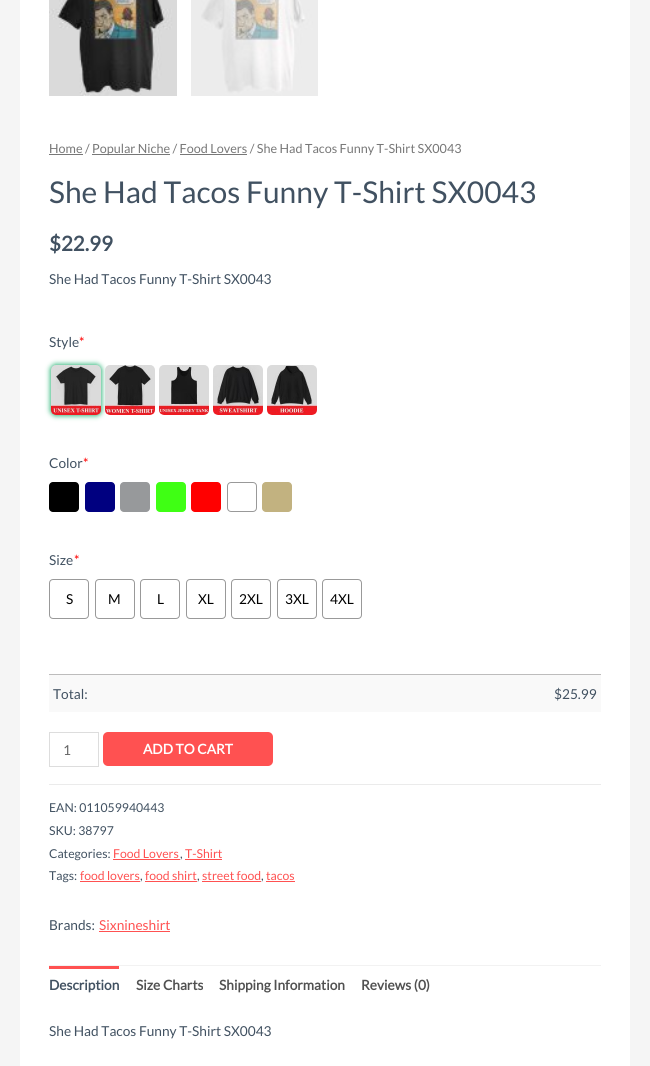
import math
import cairo

surface = cairo.ImageSurface(cairo.FORMAT_RGB24, 650, 1066)
cr = cairo.Context(surface)
options = cairo.FontOptions()
options.set_hint_metrics(cairo.HINT_METRICS_OFF)
options.set_hint_style(cairo.HINT_STYLE_NONE)
cr.set_font_options(options)
cr.set_miter_limit(4)


def rgb(code):
    cr.set_source_rgb(*(v / 255 for v in bytes.fromhex(code[-6:])))


def rrect(x, y, w, h, r):
    cr.new_sub_path()
    for i, (u, v) in enumerate([(x + w - r, y + h - r), (x + r, y + h - r), (x + r, y + r), (x + w - r, y + r)]):
        cr.arc(u, v, r, i * math.pi / 2, (i + 1) * math.pi / 2)
    cr.close_path()


def soft_shadow(x, y, w, h, r, blur, alpha):
    cr.push_group_with_content(cairo.CONTENT_ALPHA)
    cr.set_operator(cairo.OPERATOR_SOURCE)
    for i in range(15, -16, -2):
        e = blur * i / 6
        if min(w, h) + 2 * e > 0:
            cr.set_source_rgba(0, 0, 0, alpha * math.erfc((i - 1) / 8.5) / 2)
            rrect(x - e, y - e, w + 2 * e, h + 2 * e, max(0, min(r + e + blur * .6, min(w, h) / 2 + e)))
            cr.fill()
    cr.mask(cr.pop_group())


def image(path, x, y, w, h):
    cr.save()
    cr.set_source_surface(cairo.ImageSurface.create_from_png(path), x, y)
    cr.rectangle(x, y, w, h)
    cr.fill()
    cr.restore()


rgb("#f5f5f5")
cr.paint()
rgb("#ffffff")
cr.rectangle(20, 0, 610, 1066)
cr.fill()
image("img/1.png", 49, 0, 128, 96)
image("img/2.png", 191, 0, 127, 96)
for x, y, w, h, color in [
    (49, 154, 34, 1, "#777777"),
    (92, 154, 78, 1, "#777777"),
    (180, 154, 67, 1, "#777777"),
]:
    rgb(color)
    cr.rectangle(x, y, w, h)
    cr.fill()
rgb("#36b97e")
soft_shadow(50, 364, 52, 52, 6, 2.5, 1)
image("img/3.png", 51, 365, 50, 50)
image("img/4.png", 105, 365, 50, 50)
image("img/5.png", 159, 365, 50, 50)
image("img/6.png", 213, 365, 50, 50)
image("img/7.png", 267, 365, 50, 50)
rgb("#000000")
rrect(49, 482, 30, 30, 4)
cr.fill()
rgb("#000080")
rrect(85, 482, 30, 30, 4)
cr.fill()
rgb("#97999b")
rrect(120, 482, 30, 30, 4)
cr.fill()
rgb("#3fff14")
rrect(156, 482, 30, 30, 4)
cr.fill()
rgb("#ff0000")
rrect(191, 482, 30, 30, 4)
cr.fill()
rrect(227.5, 482.5, 29, 29, 3.5)
rgb("#999999")
cr.set_line_width(1)
cr.stroke()
rgb("#c2b280")
rrect(262, 482, 30, 30, 4)
cr.fill()
rrect(49.5, 579.5, 39, 39, 3.5)
rgb("#999999")
cr.stroke()
rrect(95.5, 579.5, 39, 39, 3.5)
cr.stroke()
rrect(140.5, 579.5, 39, 39, 3.5)
cr.stroke()
rrect(186.5, 579.5, 39, 39, 3.5)
cr.stroke()
rrect(231.5, 579.5, 39, 39, 3.5)
cr.stroke()
rrect(277.5, 579.5, 39, 39, 3.5)
cr.stroke()
rrect(322.5, 579.5, 39, 39, 3.5)
cr.stroke()
rgb("#f9f9f9")
cr.rectangle(49, 675, 552, 37)
cr.fill()
rgb("#bdbcbc")
cr.rectangle(49, 674, 552, 1)
cr.fill()
cr.rectangle(49.5, 732.5, 49, 34)
rgb("#dddddd")
cr.stroke()
rgb("#ff5151")
rrect(103, 732, 170, 34, 5)
cr.fill()
for x, y, w, h, color in [
    (49, 784, 552, 1, "#ebebeb"),
    (113, 859, 67, 1, "#ff5151"),
    (185, 859, 37, 1, "#ff5151"),
    (80, 881, 60, 1, "#ff5151"),
    (145, 881, 52, 1, "#ff5151"),
    (202, 881, 59, 1, "#ff5151"),
    (266, 881, 29, 1, "#ff5151"),
    (99, 931, 71, 1, "#ff5151"),
    (49, 965, 552, 1, "#f2f2f2"),
    (49, 966, 70, 3, "#ff5151"),
]:
    rgb(color)
    cr.rectangle(x, y, w, h)
    cr.fill()
cr.select_font_face("Lato")
cr.set_font_size(12.6)
rgb("#777777")
cr.move_to(49, 153)
cr.show_text("Home /")
cr.move_to(92, 153)
cr.show_text("Popular Niche / Food Lovers / She Had Tacos Funny T-Shirt SX0043")
cr.set_font_size(30)
rgb("#415161")
cr.move_to(49, 203)
cr.show_text("She Had Tacos Funny T-Shirt SX0043")
cr.select_font_face("Lato", cairo.FONT_SLANT_NORMAL, cairo.FONT_WEIGHT_BOLD)
cr.set_font_size(20.5)
cr.move_to(49, 251)
cr.show_text("$22.99")
cr.select_font_face("Lato")
cr.set_font_size(13.7)
cr.move_to(49, 284)
cr.show_text("She Had Tacos Funny T-Shirt SX0043")
cr.move_to(49, 347)
cr.show_text("Style")
rgb("#ff0000")
cr.move_to(79, 347)
cr.show_text("*")
rgb("#415161")
cr.move_to(49, 468)
cr.show_text("Color")
rgb("#ff0000")
cr.move_to(83, 468)
cr.show_text("*")
rgb("#415161")
cr.move_to(49, 565)
cr.show_text("Size")
rgb("#ff0000")
cr.move_to(74, 565)
cr.show_text("*")
rgb("#000000")
for x, y, s in [
    (66, 604, "S"),
    (108, 604, "M"),
    (157, 604, "L"),
    (198, 604, "XL"),
    (239, 604, "2XL"),
    (285, 604, "3XL"),
    (330, 604, "4XL"),
]:
    cr.move_to(x, y)
    cr.show_text(s)
rgb("#415161")
cr.move_to(53, 699)
cr.show_text("Total:")
cr.move_to(554, 699)
cr.show_text("$25.99")
rgb("#666666")
cr.move_to(63, 755)
cr.show_text("1")
cr.select_font_face("Lato", cairo.FONT_SLANT_NORMAL, cairo.FONT_WEIGHT_BOLD)
rgb("#ffffff")
cr.move_to(143, 754)
cr.show_text("ADD TO CART")
cr.select_font_face("Lato")
cr.set_font_size(12.25)
rgb("#415161")
for x, y, s in [
    (49, 812, "EAN: 011059940443"),
    (49, 835, "SKU: 38797"),
    (49, 858, "Categories:"),
]:
    cr.move_to(x, y)
    cr.show_text(s)
rgb("#ff5151")
cr.move_to(113, 858)
cr.show_text("Food Lovers")
rgb("#415161")
cr.move_to(180, 858)
cr.show_text(",")
rgb("#ff5151")
cr.move_to(185, 858)
cr.show_text("T-Shirt")
rgb("#415161")
cr.move_to(49, 880)
cr.show_text("Tags:")
rgb("#ff5151")
cr.move_to(80, 880)
cr.show_text("food lovers")
rgb("#415161")
cr.move_to(140, 880)
cr.show_text(",")
rgb("#ff5151")
cr.move_to(145, 880)
cr.show_text("food shirt")
rgb("#415161")
cr.move_to(197, 880)
cr.show_text(",")
rgb("#ff5151")
cr.move_to(202, 880)
cr.show_text("street food")
rgb("#415161")
cr.move_to(261, 880)
cr.show_text(",")
rgb("#ff5151")
cr.move_to(266, 880)
cr.show_text("tacos")
cr.set_font_size(13.7)
rgb("#415161")
cr.move_to(49, 930)
cr.show_text("Brands:")
rgb("#ff5151")
cr.move_to(99, 930)
cr.show_text("Sixnineshirt")
cr.select_font_face("Lato", cairo.FONT_SLANT_NORMAL, cairo.FONT_WEIGHT_BOLD)
rgb("#415161")
cr.move_to(49, 990)
cr.show_text("Description")
rgb("#515151")
for x, y, s in [
    (136, 990, "Size Charts"),
    (219, 990, "Shipping Information"),
    (361, 990, "Reviews (0)"),
]:
    cr.move_to(x, y)
    cr.show_text(s)
cr.select_font_face("Lato")
rgb("#415161")
cr.move_to(49, 1036)
cr.show_text("She Had Tacos Funny T-Shirt SX0043")
surface.write_to_png("page.png")
